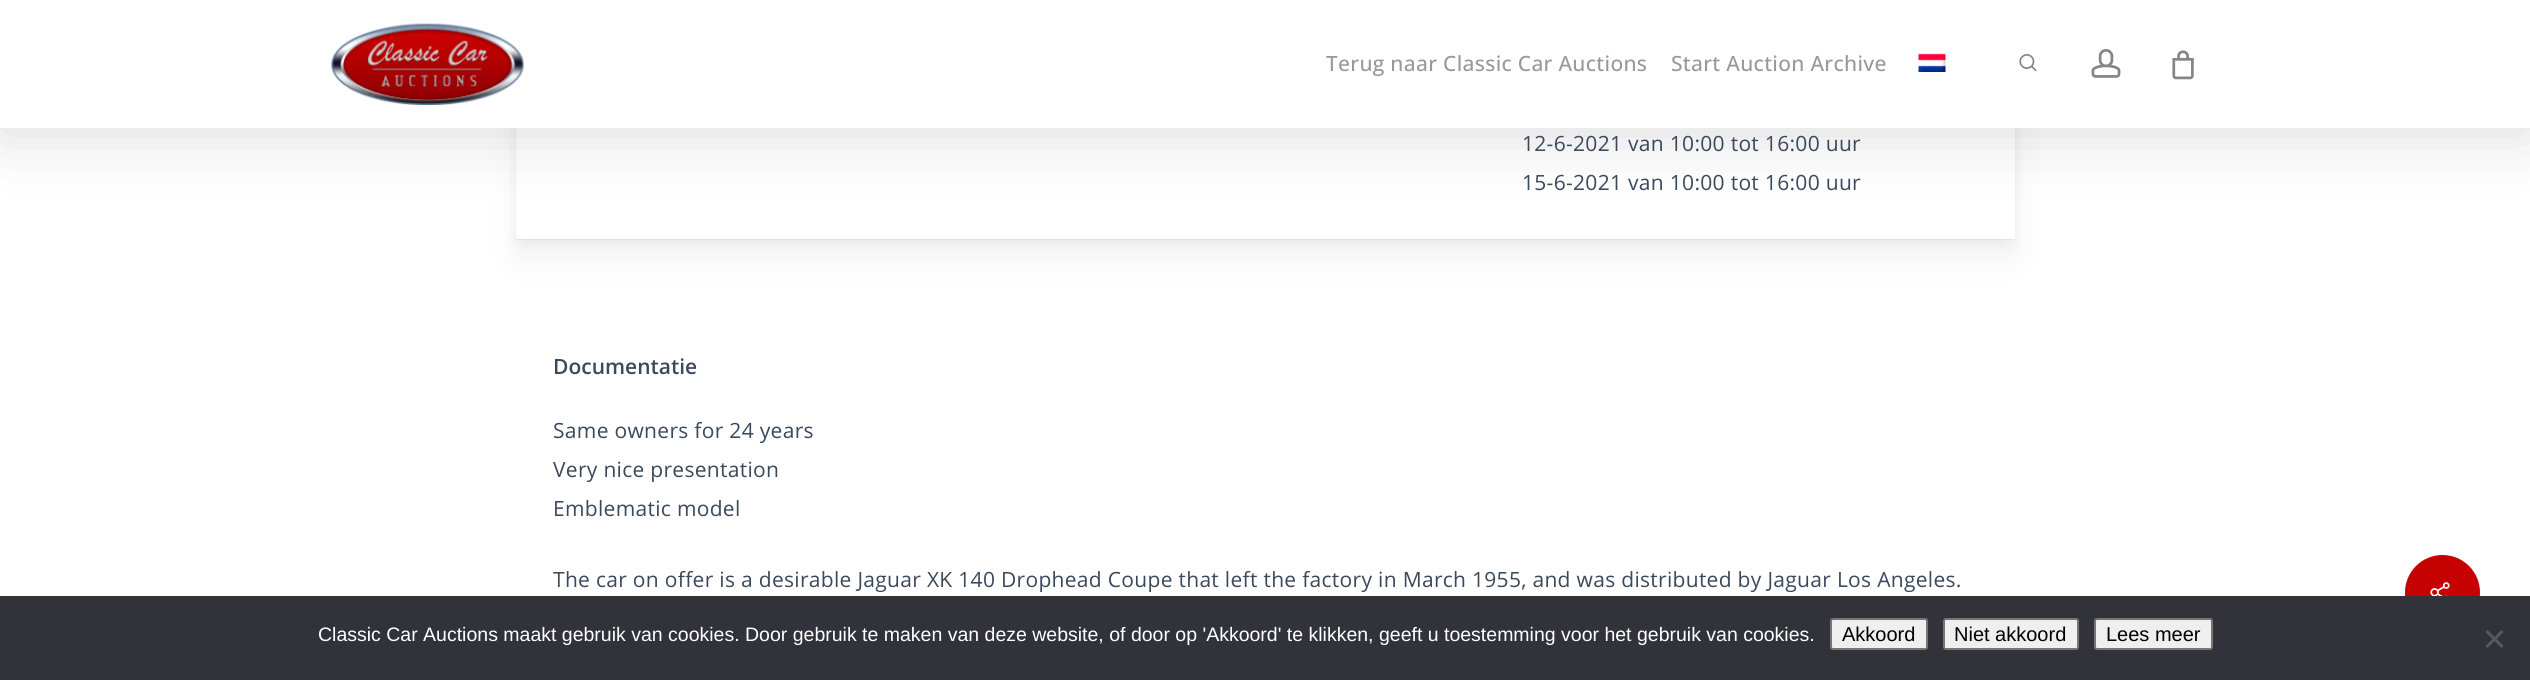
import math
import cairo

surface = cairo.ImageSurface(cairo.FORMAT_RGB24, 2530, 680)
cr = cairo.Context(surface)
options = cairo.FontOptions()
options.set_hint_metrics(cairo.HINT_METRICS_OFF)
options.set_hint_style(cairo.HINT_STYLE_NONE)
cr.set_font_options(options)
cr.set_miter_limit(4)


def rgb(code):
    cr.set_source_rgb(*(v / 255 for v in bytes.fromhex(code[-6:])))


def tracked(x, y, s, letter, word):
    cr.move_to(x, y)
    for ch in s:
        cr.show_text(ch)
        cr.rel_move_to(letter + word * (ch == ' '), 0)


def rrect(x, y, w, h, r):
    cr.new_sub_path()
    for i, (u, v) in enumerate([(x + w - r, y + h - r), (x + r, y + h - r), (x + r, y + r), (x + w - r, y + r)]):
        cr.arc(u, v, r, i * math.pi / 2, (i + 1) * math.pi / 2)
    cr.close_path()


def soft_shadow(x, y, w, h, r, blur, alpha):
    cr.push_group_with_content(cairo.CONTENT_ALPHA)
    cr.set_operator(cairo.OPERATOR_SOURCE)
    for i in range(15, -16, -2):
        e = blur * i / 6
        if min(w, h) + 2 * e > 0:
            cr.set_source_rgba(0, 0, 0, alpha * math.erfc((i - 1) / 8.5) / 2)
            rrect(x - e, y - e, w + 2 * e, h + 2 * e, max(0, min(r + e + blur * .6, min(w, h) / 2 + e)))
            cr.fill()
    cr.mask(cr.pop_group())


def image(path, x, y, w, h):
    cr.save()
    cr.set_source_surface(cairo.ImageSurface.create_from_png(path), x, y)
    cr.rectangle(x, y, w, h)
    cr.fill()
    cr.restore()


rgb("#ffffff")
cr.paint()
rgb("#000000")
soft_shadow(516, -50, 1499, 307, 0, 16.5, 0.06)
soft_shadow(516, -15, 1499, 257, 0, 5, 0.05)
cr.set_source_rgba(0, 0, 0, 0.04)
cr.new_path()
cr.move_to(516, 238)
cr.line_to(516, 240)
cr.line_to(2015, 240)
cr.line_to(2015, -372)
cr.line_to(2014, -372)
cr.line_to(2014, 238)
cr.close_path()
cr.fill()
rgb("#ffffff")
cr.rectangle(516, 128, 1499, 111)
cr.fill()
rgb("#000000")
soft_shadow(0, 5, 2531, 127, 0, 34, 0.15)
rgb("#ffffff")
cr.rectangle(0, 0, 2530, 128)
cr.fill()
image("img/1.png", 331, 23, 193, 82)
image("img/2.png", 1918, 53, 28, 19)
image("img/3.png", 2019, 54, 18, 18)
image("img/4.png", 2091, 49, 30, 29)
image("img/5.png", 2172, 50, 22, 30)
rgb("#c60101")
cr.arc(2442.5, 592.5, 37.5, 0, 2 * math.pi)
cr.fill()
image("img/6.png", 2430, 582, 20, 14)
rgb("#32323a")
cr.rectangle(0, 596, 2530, 84)
cr.fill()
rgb("#efefef")
rrect(1831, 619, 96, 30, 2)
cr.fill_preserve()
rgb("#767676")
cr.stroke()
rgb("#efefef")
rrect(1944, 619, 134, 30, 2)
cr.fill_preserve()
rgb("#767676")
cr.stroke()
rgb("#efefef")
rrect(2095, 619, 117, 30, 2)
cr.fill_preserve()
rgb("#767676")
cr.stroke()
rgb("#59595d")
cr.new_path()
cr.move_to(2501.5, 630)
cr.line_to(2503.5, 632)
cr.line_to(2487.5, 648)
cr.line_to(2485.5, 646)
cr.close_path()
cr.fill()
cr.new_path()
cr.move_to(2485.5, 632)
cr.line_to(2487.5, 630)
cr.line_to(2503.5, 646)
cr.line_to(2501.5, 648)
cr.close_path()
cr.fill()
cr.select_font_face("Open Sans Medium")
cr.set_font_size(21)
rgb("#999999")
tracked(1326, 71, "Terug naar Classic Car Auctions", 0.3, 0)
tracked(1671, 71, "Start Auction Archive", 0.3, 0)
cr.select_font_face("Open Sans")
rgb("#3b495c")
tracked(1522, 151, "12-6-2021 van 10:00 tot 16:00 uur", 0.3, 0)
tracked(1522, 190, "15-6-2021 van 10:00 tot 16:00 uur", 0.3, 0)
cr.select_font_face("Open Sans SemiBold")
cr.move_to(553, 374)
cr.show_text("Documentatie")
cr.select_font_face("Open Sans")
for x, y, s in [
    (553, 438, "Same owners for 24 years"),
    (553, 477, "Very nice presentation"),
    (553, 516, "Emblematic model"),
    (553, 587, "The car on offer is a desirable Jaguar XK 140 Drophead Coupe that left the factory in March 1955, and was distributed by Jaguar Los Angeles."),
]:
    tracked(x, y, s, 0.3, 0)
cr.select_font_face("Liberation Sans")
cr.set_font_size(19.5)
rgb("#ffffff")
cr.move_to(318, 641)
cr.show_text("Classic Car Auctions maakt gebruik van cookies. Door gebruik te maken van deze website, of door op 'Akkoord' te klikken, geeft u toestemming voor het gebruik van cookies.")
cr.set_font_size(20)
rgb("#000000")
for x, y, s in [
    (1842, 641, "Akkoord"),
    (1954, 641, "Niet akkoord"),
    (2106, 641, "Lees meer"),
]:
    cr.move_to(x, y)
    cr.show_text(s)
surface.write_to_png("page.png")
